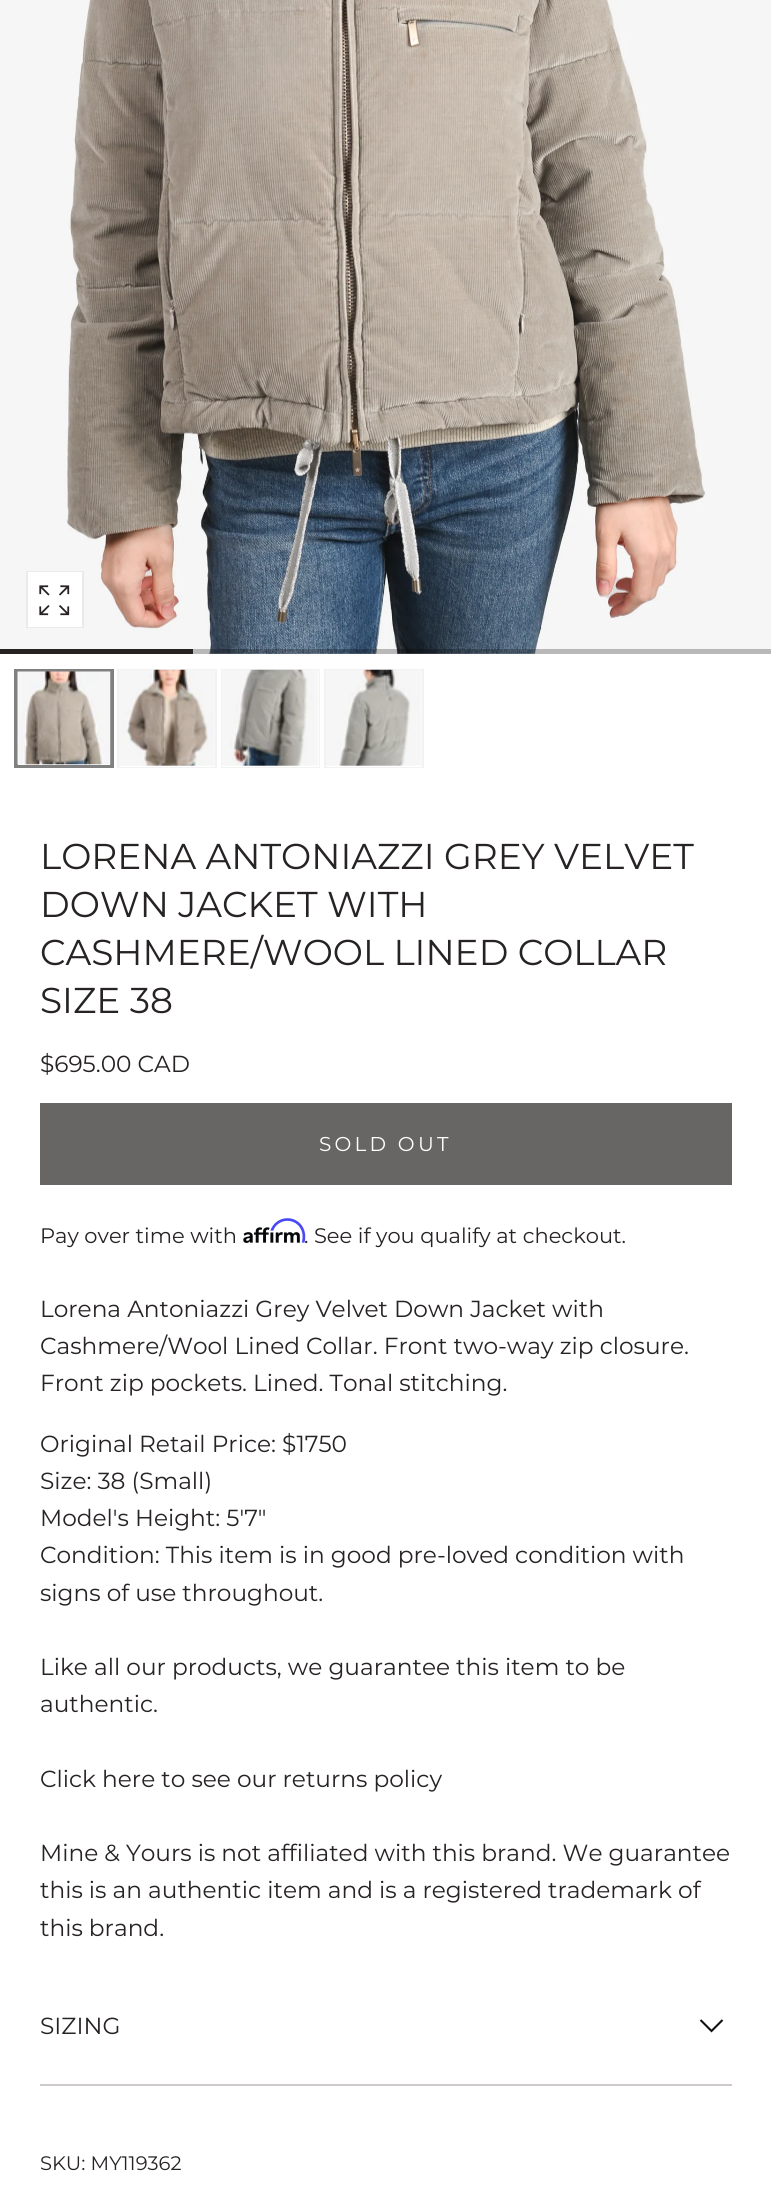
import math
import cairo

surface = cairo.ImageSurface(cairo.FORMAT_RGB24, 771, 2186)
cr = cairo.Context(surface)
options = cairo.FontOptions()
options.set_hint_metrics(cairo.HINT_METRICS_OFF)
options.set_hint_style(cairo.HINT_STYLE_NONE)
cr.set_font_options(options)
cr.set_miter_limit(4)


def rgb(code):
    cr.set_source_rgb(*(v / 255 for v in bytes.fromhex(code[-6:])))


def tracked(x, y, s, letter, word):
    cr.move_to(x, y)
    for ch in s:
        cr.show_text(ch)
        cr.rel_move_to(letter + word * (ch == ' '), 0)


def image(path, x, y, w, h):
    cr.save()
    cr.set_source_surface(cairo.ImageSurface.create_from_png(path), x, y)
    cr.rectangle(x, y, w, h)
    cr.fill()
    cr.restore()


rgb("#ffffff")
cr.paint()
image("img/1.png", 0, 0, 771, 654)
cr.rectangle(27, 572, 56, 55)
rgb("#eaeaea")
cr.stroke()
rgb("#ffffff")
cr.rectangle(28, 572, 54, 55)
cr.fill()
image("img/2.png", 39, 585, 31, 31)
cr.set_source_rgba(0, 0, 0, 0.25)
cr.rectangle(193, 649, 578, 5)
cr.fill()
rgb("#272323")
cr.rectangle(0, 649, 193, 5)
cr.fill()
cr.rectangle(16, 671, 96, 95)
rgb("#808080")
cr.set_line_width(4)
cr.stroke()
rgb("#ffffff")
cr.rectangle(18, 764, 92, 1)
cr.fill()
image("img/3.png", 17, 671, 94, 94)
cr.rectangle(118, 670, 98, 97)
rgb("#f2f2f2")
cr.set_line_width(2)
cr.stroke()
rgb("#ffffff")
cr.rectangle(119, 670, 96, 97)
cr.fill()
image("img/4.png", 119, 669, 96, 97)
cr.rectangle(222, 670, 97, 97)
rgb("#f2f2f2")
cr.stroke()
rgb("#ffffff")
cr.rectangle(222, 670, 97, 97)
cr.fill()
image("img/5.png", 222, 669, 97, 97)
cr.rectangle(325, 670, 98, 97)
rgb("#f2f2f2")
cr.stroke()
rgb("#ffffff")
cr.rectangle(326, 670, 96, 97)
cr.fill()
image("img/6.png", 326, 669, 96, 97)
rgb("#686565")
cr.rectangle(40, 1103, 692, 82)
cr.fill()
image("img/8.png", 243, 1227, 57, 16)
rgb("#cecaca")
cr.rectangle(40, 2084, 692, 2)
cr.fill()
cr.new_path()
cr.move_to(722.5, 2020)
cr.line_to(711.5, 2031)
cr.line_to(700.5, 2020)
rgb("#111111")
cr.set_line_width(2.1)
cr.stroke()
cr.select_font_face("Montserrat")
cr.set_font_size(35.9)
rgb("#272323")
for x, y, s in [
    (40, 869, "LORENA ANTONIAZZI GREY VELVET"),
    (40, 917, "DOWN JACKET WITH"),
    (40, 965, "CASHMERE/WOOL LINED COLLAR"),
    (40, 1013, "SIZE 38"),
]:
    cr.move_to(x, y)
    cr.show_text(s)
cr.set_font_size(23.25)
cr.move_to(40, 1072)
cr.show_text("$695.00 CAD")
cr.set_font_size(20)
rgb("#ffffff")
tracked(319, 1151, "SOLD OUT", 3.25, 0)
cr.set_font_size(21)
rgb("#272323")
cr.move_to(40, 1243)
cr.show_text("Pay over time with")
cr.move_to(304, 1243)
cr.show_text(". See if you qualify at checkout.")
image("img/7.png", 270, 1218, 36, 25)
cr.set_font_size(23.25)
for x, y, s in [
    (40, 1317, "Lorena Antoniazzi Grey Velvet Down Jacket with"),
    (40, 1354, "Cashmere/Wool Lined Collar. Front two-way zip closure."),
    (40, 1391, "Front zip pockets. Lined. Tonal stitching."),
    (40, 1452, "Original Retail Price: $1750"),
    (40, 1489, "Size: 38 (Small)"),
    (40, 1526, "Model's Height: 5'7\""),
    (40, 1563, "Condition: This item is in good pre-loved condition with"),
    (40, 1601, "signs of use throughout."),
    (40, 1675, "Like all our products, we guarantee this item to be"),
    (40, 1712, "authentic."),
    (40, 1787, "Click here to see our returns policy"),
    (40, 1861, "Mine & Yours is not affiliated with this brand. We guarantee"),
    (40, 1898, "this is an authentic item and is a registered trademark of"),
    (40, 1936, "this brand."),
    (40, 2034, "SIZING"),
]:
    cr.move_to(x, y)
    cr.show_text(s)
cr.set_font_size(19.5)
cr.move_to(40, 2170)
cr.show_text("SKU: MY119362")
surface.write_to_png("page.png")
